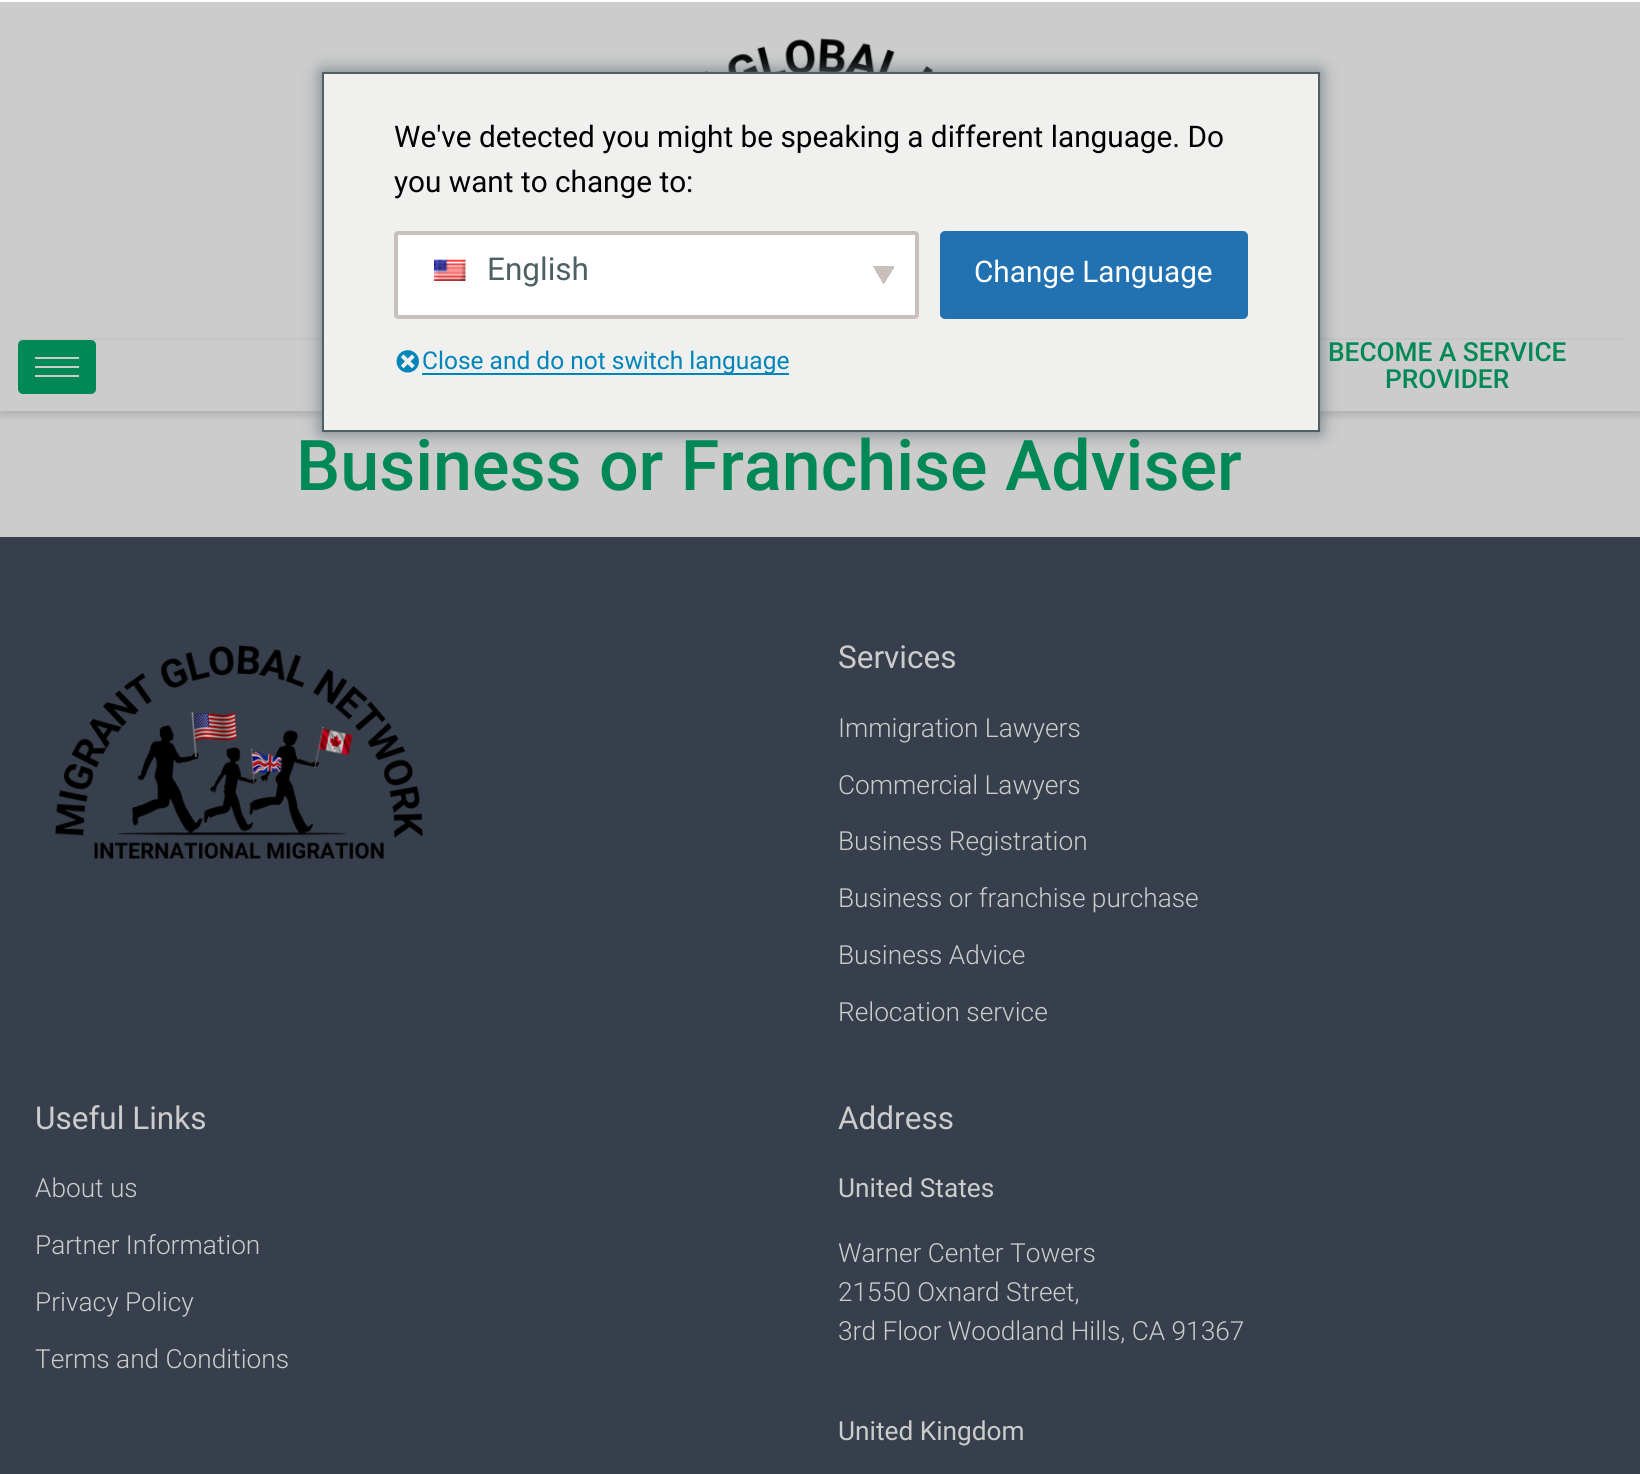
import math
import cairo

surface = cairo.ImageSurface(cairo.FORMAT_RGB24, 1640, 1474)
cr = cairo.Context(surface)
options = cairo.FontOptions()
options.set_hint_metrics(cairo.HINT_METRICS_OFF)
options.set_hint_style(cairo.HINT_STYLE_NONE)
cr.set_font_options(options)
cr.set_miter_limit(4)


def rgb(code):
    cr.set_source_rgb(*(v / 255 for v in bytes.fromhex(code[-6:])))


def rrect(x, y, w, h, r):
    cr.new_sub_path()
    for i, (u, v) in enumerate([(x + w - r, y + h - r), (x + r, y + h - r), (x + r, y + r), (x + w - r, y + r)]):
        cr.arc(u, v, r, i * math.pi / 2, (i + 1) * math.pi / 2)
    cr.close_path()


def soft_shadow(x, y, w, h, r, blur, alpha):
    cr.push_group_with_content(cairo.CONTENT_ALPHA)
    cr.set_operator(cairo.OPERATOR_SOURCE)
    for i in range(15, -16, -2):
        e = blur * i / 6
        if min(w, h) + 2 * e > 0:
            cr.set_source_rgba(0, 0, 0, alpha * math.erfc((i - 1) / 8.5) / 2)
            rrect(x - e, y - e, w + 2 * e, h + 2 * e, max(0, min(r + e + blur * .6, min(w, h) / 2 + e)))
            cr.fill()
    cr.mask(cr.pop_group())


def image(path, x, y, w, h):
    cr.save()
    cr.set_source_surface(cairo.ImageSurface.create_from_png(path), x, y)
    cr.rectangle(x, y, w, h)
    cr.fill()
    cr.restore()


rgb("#ffffff")
cr.paint()
rgb("#cccccc")
cr.rectangle(0, 2, 1640, 535)
cr.fill()
cr.save()
cr.rectangle(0, 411, 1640, 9)
cr.clip()
rgb("#000000")
soft_shadow(0, 4, 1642, 411, 0, 4.5, 0.15)
cr.restore()
rgb("#c5c5c5")
cr.rectangle(18, 338, 1606, 2)
cr.fill()
image("img/3.png", 704, 38, 229, 34)
rgb("#6c7781")
soft_shadow(322, 72, 998, 360, 0, 9, 1)
rgb("#f0f0ee")
cr.rectangle(323, 73, 996, 358)
cr.fill_preserve()
rgb("#4c6066")
cr.stroke()
rgb("#ffffff")
rrect(394, 231, 525, 88, 4)
cr.fill()
gradient = cairo.LinearGradient(881, 271, 897, 281)
gradient.add_color_stop_rgba(0.5, 0.788, 0.753, 0.733, 1)
gradient.add_color_stop_rgba(0.5, 1, 1, 1, 1)
cr.set_source(gradient)
cr.rectangle(884, 266, 10, 17)
cr.fill()
gradient = cairo.LinearGradient(870, 281, 887, 271)
gradient.add_color_stop_rgba(0.5, 1, 1, 1, 1)
gradient.add_color_stop_rgba(0.5, 0.788, 0.753, 0.733, 1)
cr.set_source(gradient)
cr.rectangle(873, 266, 11, 18)
cr.fill()
rrect(396, 233, 521, 84, 2)
rgb("#c9c0bb")
cr.set_line_width(4)
cr.stroke()
image("img/1.png", 434, 259, 32, 22)
rgb("#2271b1")
rrect(941, 232, 306, 86, 4)
cr.fill_preserve()
cr.set_line_width(2)
cr.stroke()
image("img/2.png", 396, 350, 23, 23)
rgb("#0085ba")
cr.rectangle(422, 373, 367, 2)
cr.fill()
rgb("#008956")
rrect(18, 340, 78, 54, 5)
cr.fill()
for x, y, w, h, color in [
    (35, 357, 44, 2, "#cccccc"),
    (35, 366, 44, 2, "#cccccc"),
    (35, 375, 44, 2, "#cccccc"),
    (0, 537, 1640, 937, "#373f4c"),
]:
    rgb(color)
    cr.rectangle(x, y, w, h)
    cr.fill()
image("img/4.png", 55, 645, 368, 214)
cr.select_font_face("Roboto")
cr.set_font_size(29.75)
rgb("#000000")
cr.move_to(394, 147)
cr.show_text("We've detected you might be speaking a different language. Do")
cr.move_to(394, 192)
cr.show_text("you want to change to:")
cr.set_font_size(31.5)
rgb("#4c6066")
cr.move_to(487, 280)
cr.show_text("English")
cr.set_font_size(29.75)
rgb("#ffffff")
cr.move_to(974, 282)
cr.show_text("Change Language")
cr.set_font_size(24.5)
rgb("#0085ba")
cr.move_to(422, 369)
cr.show_text("Close and do not switch language")
cr.select_font_face("Roboto Medium")
cr.set_font_size(26.25)
rgb("#008956")
cr.move_to(1328, 361)
cr.show_text("BECOME A SERVICE")
cr.move_to(1385, 388)
cr.show_text("PROVIDER")
cr.set_font_size(70)
cr.move_to(296, 490)
cr.show_text("Business or Franchise Adviser")
cr.select_font_face("Roboto")
cr.set_font_size(31.5)
rgb("#cccccc")
cr.move_to(838, 668)
cr.show_text("Services")
cr.select_font_face("Roboto Light")
cr.set_font_size(26.25)
for x, y, s in [
    (838, 737, "Immigration Lawyers"),
    (838, 794, "Commercial Lawyers"),
    (838, 850, "Business Registration"),
    (838, 907, "Business or franchise purchase"),
    (838, 964, "Business Advice"),
    (838, 1021, "Relocation service"),
]:
    cr.move_to(x, y)
    cr.show_text(s)
cr.select_font_face("Roboto")
cr.set_font_size(31.5)
cr.move_to(35, 1129)
cr.show_text("Useful Links")
cr.select_font_face("Roboto Light")
cr.set_font_size(26.25)
for x, y, s in [
    (35, 1197, "About us"),
    (35, 1254, "Partner Information"),
    (35, 1311, "Privacy Policy"),
    (35, 1368, "Terms and Conditions"),
]:
    cr.move_to(x, y)
    cr.show_text(s)
cr.select_font_face("Roboto")
cr.set_font_size(31.5)
cr.move_to(838, 1129)
cr.show_text("Address")
cr.set_font_size(26.25)
cr.move_to(838, 1197)
cr.show_text("United States")
cr.select_font_face("Roboto Light")
for x, y, s in [
    (838, 1262, "Warner Center Towers"),
    (838, 1301, "21550 Oxnard Street,"),
    (838, 1340, "3rd Floor Woodland Hills, CA 91367"),
]:
    cr.move_to(x, y)
    cr.show_text(s)
cr.select_font_face("Roboto")
cr.move_to(838, 1440)
cr.show_text("United Kingdom")
surface.write_to_png("page.png")
